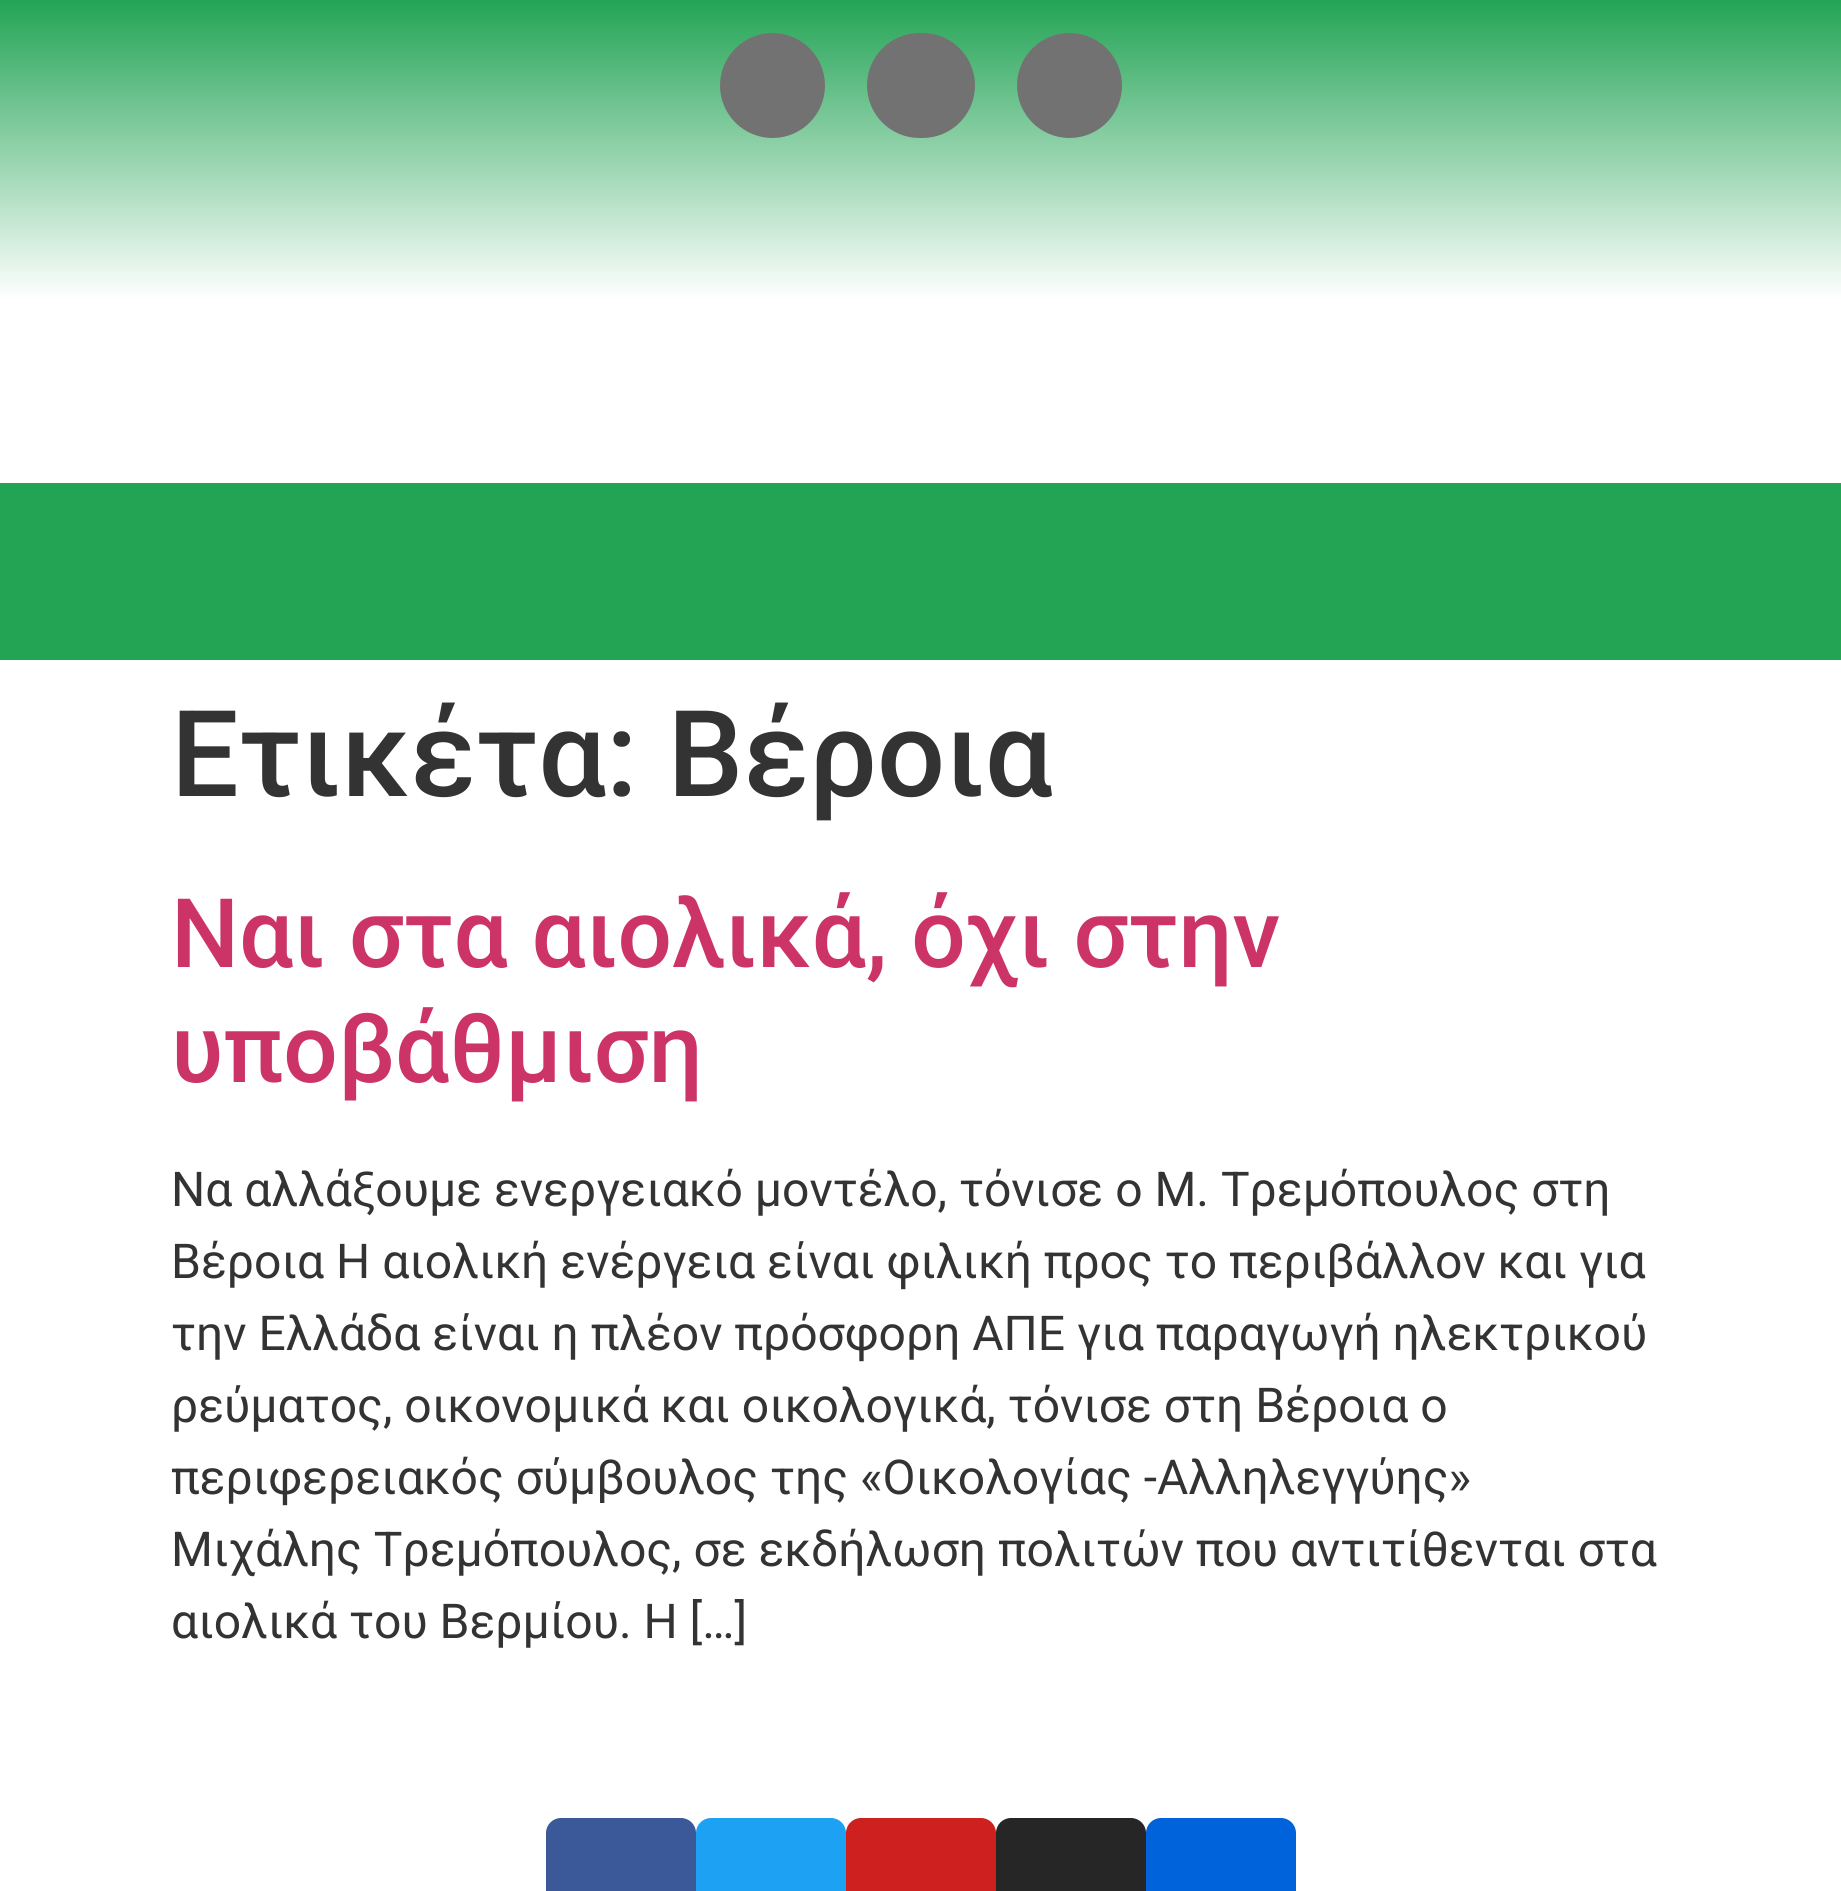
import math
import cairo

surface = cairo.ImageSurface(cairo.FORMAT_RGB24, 1841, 1891)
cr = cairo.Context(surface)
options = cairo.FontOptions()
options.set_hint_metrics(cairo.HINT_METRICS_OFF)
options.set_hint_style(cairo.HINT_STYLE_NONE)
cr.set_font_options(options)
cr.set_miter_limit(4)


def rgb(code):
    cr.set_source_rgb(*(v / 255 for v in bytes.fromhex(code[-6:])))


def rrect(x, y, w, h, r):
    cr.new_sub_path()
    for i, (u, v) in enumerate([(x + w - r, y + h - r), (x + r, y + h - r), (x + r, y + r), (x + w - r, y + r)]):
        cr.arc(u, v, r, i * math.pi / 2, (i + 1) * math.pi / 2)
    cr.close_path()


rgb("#ffffff")
cr.paint()
gradient = cairo.LinearGradient(921, 0, 921, 300)
gradient.add_color_stop_rgba(0, 0.137, 0.643, 0.333, 1)
gradient.add_color_stop_rgba(1, 1, 1, 1, 1)
cr.set_source(gradient)
cr.rectangle(0, 0, 1841, 297)
cr.fill()
rgb("#727272")
cr.arc(772.5, 85.5, 52.5, 0, 2 * math.pi)
cr.fill()
rrect(867, 33, 108, 105, 52.5)
cr.fill()
cr.arc(1069.5, 85.5, 52.5, 0, 2 * math.pi)
cr.fill()
rgb("#23a455")
cr.rectangle(0, 483, 1841, 177)
cr.fill()
rgb("#3b5998")
rrect(546, 1818, 150, 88, 15)
cr.fill()
rgb("#1da1f2")
rrect(696, 1818, 150, 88, 15)
cr.fill()
rgb("#cd201f")
rrect(846, 1818, 150, 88, 15)
cr.fill()
rgb("#262626")
rrect(996, 1818, 150, 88, 15)
cr.fill()
rgb("#0063dc")
rrect(1146, 1818, 150, 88, 15)
cr.fill()
cr.select_font_face("Roboto Medium")
cr.set_font_size(120)
rgb("#333333")
cr.move_to(171, 796)
cr.show_text("Ετικέτα: Βέροια")
cr.set_font_size(96)
rgb("#cc3366")
cr.move_to(171, 967)
cr.show_text("Ναι στα αιολικά, όχι στην")
cr.move_to(171, 1082)
cr.show_text("υποβάθμιση")
cr.select_font_face("Roboto")
cr.set_font_size(48)
rgb("#333333")
for x, y, s in [
    (171, 1206, "Να αλλάξουμε ενεργειακό μοντέλο, τόνισε ο Μ. Τρεμόπουλος στη"),
    (171, 1278, "Βέροια Η αιολική ενέργεια είναι φιλική προς το περιβάλλον και για"),
    (171, 1350, "την Ελλάδα είναι η πλέον πρόσφορη ΑΠΕ για παραγωγή ηλεκτρικού"),
    (171, 1422, "ρεύματος, οικονομικά και οικολογικά, τόνισε στη Βέροια ο"),
    (171, 1494, "περιφερειακός σύμβουλος της «Οικολογίας -Αλληλεγγύης»"),
    (171, 1566, "Μιχάλης Τρεμόπουλος, σε εκδήλωση πολιτών που αντιτίθενται στα"),
    (171, 1638, "αιολικά του Βερμίου. Η […]"),
]:
    cr.move_to(x, y)
    cr.show_text(s)
surface.write_to_png("page.png")
